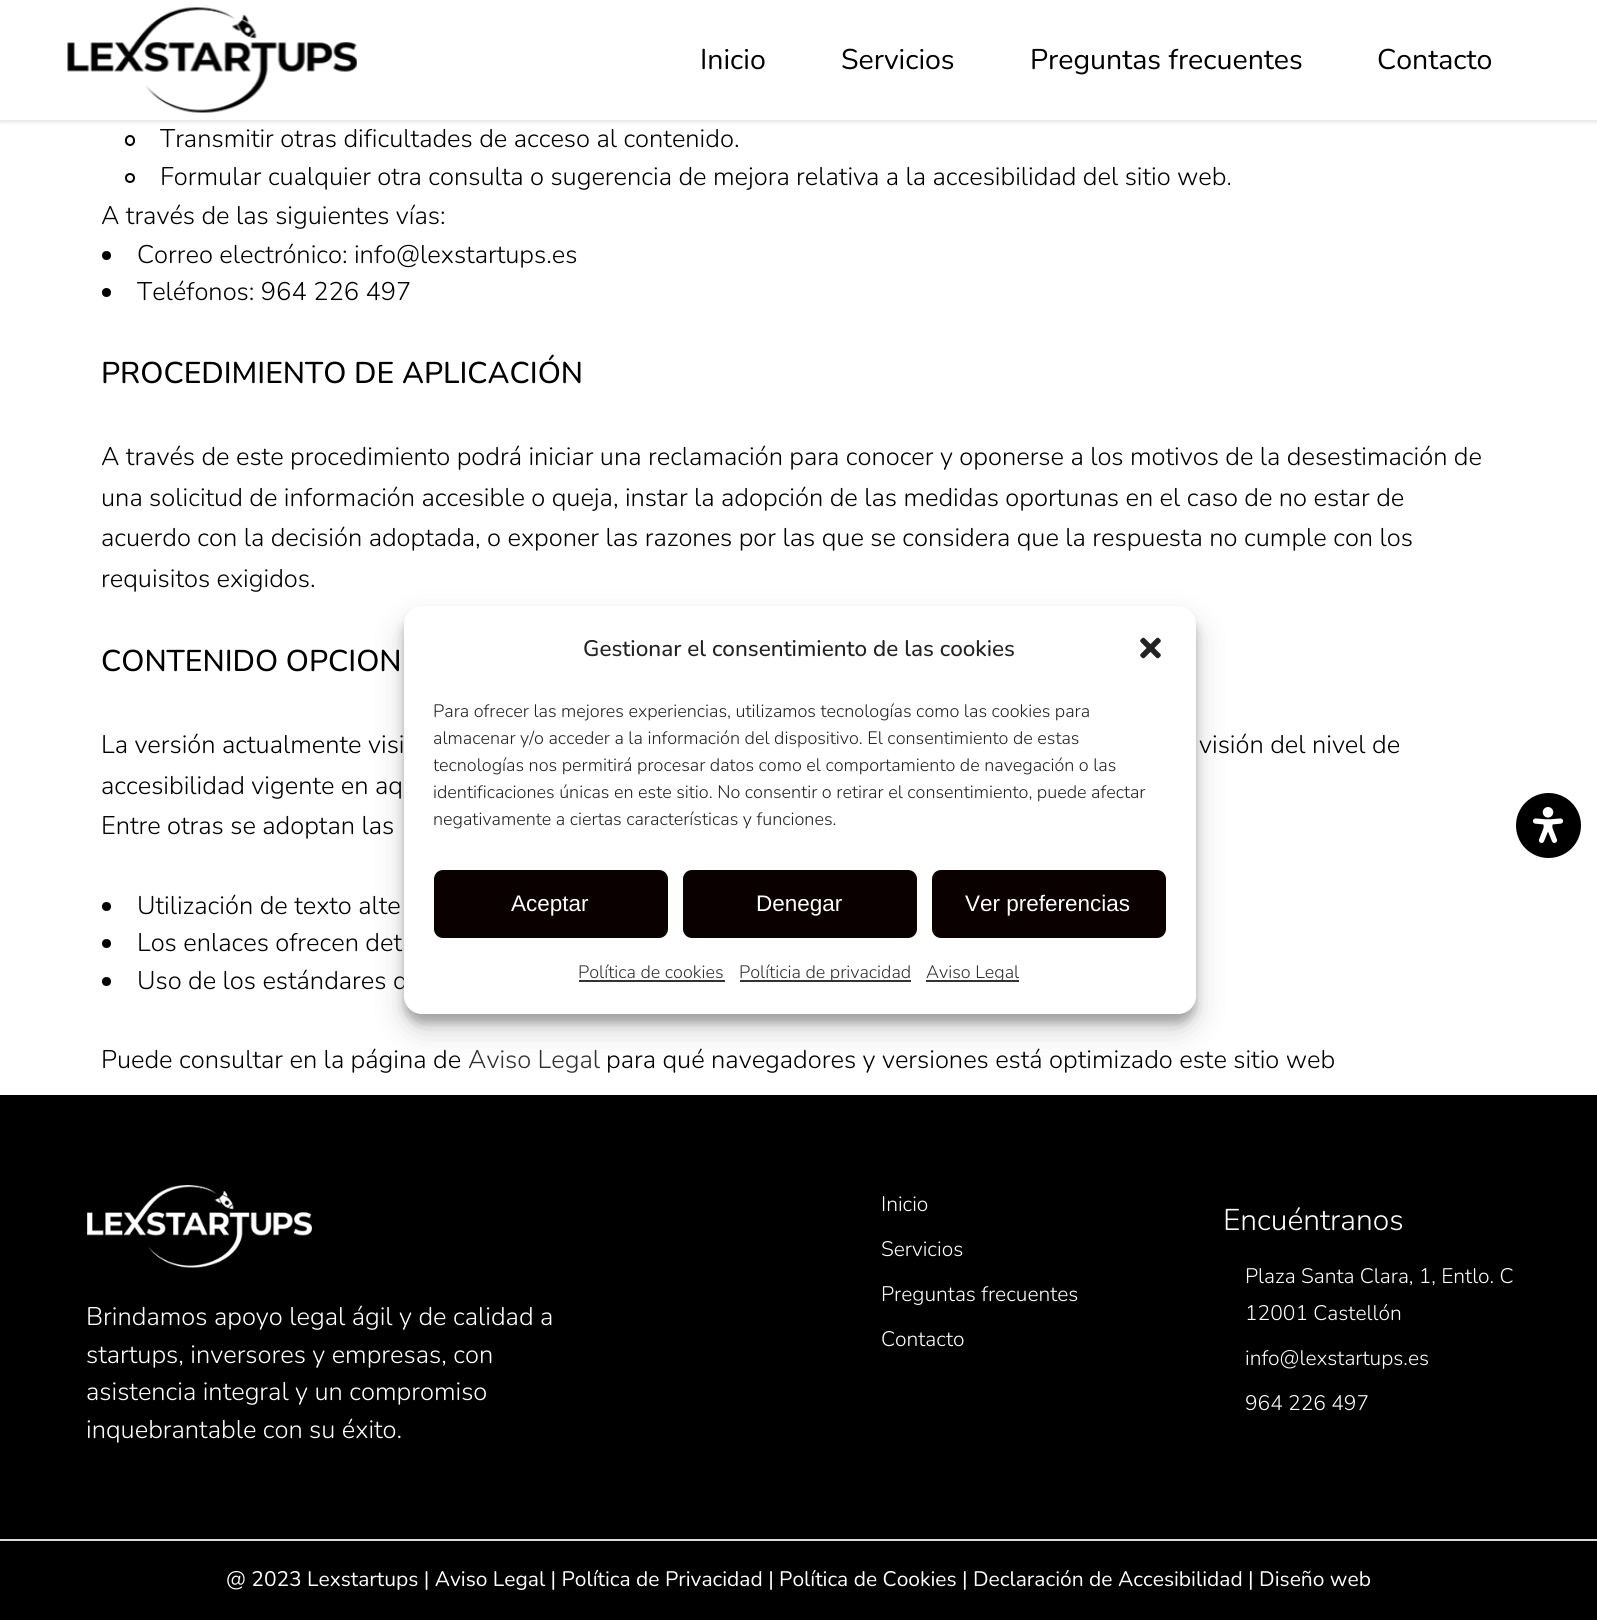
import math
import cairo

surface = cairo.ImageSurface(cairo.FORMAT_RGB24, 1597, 1620)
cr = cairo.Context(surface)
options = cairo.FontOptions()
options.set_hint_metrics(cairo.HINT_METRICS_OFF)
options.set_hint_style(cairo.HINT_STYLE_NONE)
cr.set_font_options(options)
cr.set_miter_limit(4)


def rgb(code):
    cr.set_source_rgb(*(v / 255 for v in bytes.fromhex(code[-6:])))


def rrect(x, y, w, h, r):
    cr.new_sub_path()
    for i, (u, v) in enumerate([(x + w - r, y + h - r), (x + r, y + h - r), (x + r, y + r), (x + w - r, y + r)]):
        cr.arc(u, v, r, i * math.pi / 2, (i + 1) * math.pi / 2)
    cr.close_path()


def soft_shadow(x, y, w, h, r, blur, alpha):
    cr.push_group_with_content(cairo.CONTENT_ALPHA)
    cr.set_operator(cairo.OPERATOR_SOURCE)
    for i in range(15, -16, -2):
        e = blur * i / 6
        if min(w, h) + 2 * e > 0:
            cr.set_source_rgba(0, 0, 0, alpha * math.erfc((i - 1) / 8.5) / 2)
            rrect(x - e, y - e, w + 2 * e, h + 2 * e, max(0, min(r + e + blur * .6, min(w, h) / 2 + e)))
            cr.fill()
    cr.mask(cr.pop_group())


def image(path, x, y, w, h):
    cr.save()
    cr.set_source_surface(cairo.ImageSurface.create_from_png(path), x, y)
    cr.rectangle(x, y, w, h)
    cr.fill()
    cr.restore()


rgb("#ffffff")
cr.paint()
rgb("#000000")
soft_shadow(0, 2, 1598, 120, 0, 2, 0.11)
rgb("#ffffff")
cr.rectangle(0, 0, 1597, 120)
cr.fill()
image("img/1.png", 67, 7, 290, 106)
rrect(126, 136, 8, 9, 4)
rgb("#000000")
cr.stroke()
cr.arc(130, 178, 4, 0, 2 * math.pi)
cr.stroke()
cr.arc(106.5, 255.5, 4.5, 0, 2 * math.pi)
cr.fill()
cr.arc(106.5, 292.5, 4.5, 0, 2 * math.pi)
cr.fill()
cr.arc(106.5, 906.5, 4.5, 0, 2 * math.pi)
cr.fill()
cr.arc(106.5, 943.5, 4.5, 0, 2 * math.pi)
cr.fill()
cr.arc(106.5, 981.5, 4.5, 0, 2 * math.pi)
cr.fill()
cr.rectangle(0, 1095, 1597, 444)
cr.fill()
image("img/2.png", 87, 1185, 225, 83)
cr.rectangle(0, 1541, 1597, 79)
cr.fill()
rgb("#dadada")
cr.rectangle(0, 1539, 1597, 2)
cr.fill()
rgb("#000000")
soft_shadow(404, 615, 792, 408, 18, 4.5, 0.23)
soft_shadow(404, 621, 792, 408, 18, 15, 0.19)
rgb("#000000")
cr.arc(1548.5, 825.5, 33.5, 0, 2 * math.pi)
cr.fill_preserve()
rgb("#ffffff")
cr.stroke()
image("img/4.png", 1532, 807, 32, 36)
cr.select_font_face("Nunito")
cr.set_font_size(28.5)
rgb("#000000")
for x, y, s in [
    (700, 69, "Inicio"),
    (841, 69, "Servicios"),
    (1030, 69, "Preguntas frecuentes"),
    (1377, 69, "Contacto"),
]:
    cr.move_to(x, y)
    cr.show_text(s)
cr.select_font_face("Nunito Light")
cr.set_font_size(25.5)
for x, y, s in [
    (160, 147, "Transmitir otras dificultades de acceso al contenido."),
    (160, 185, "Formular cualquier otra consulta o sugerencia de mejora relativa a la accesibilidad del sitio web."),
    (101, 224, "A través de las siguientes vías:"),
    (137, 263, "Correo electrónico: info@lexstartups.es"),
    (137, 300, "Teléfonos: 964 226 497"),
]:
    cr.move_to(x, y)
    cr.show_text(s)
cr.select_font_face("Nunito Medium")
cr.set_font_size(30)
cr.move_to(101, 383)
cr.show_text("PROCEDIMIENTO DE APLICACIÓN")
cr.select_font_face("Nunito Light")
cr.set_font_size(25.5)
for x, y, s in [
    (101, 465, "A través de este procedimiento podrá iniciar una reclamación para conocer y oponerse a los motivos de la desestimación de"),
    (101, 506, "una solicitud de información accesible o queja, instar la adopción de las medidas oportunas en el caso de no estar de"),
    (101, 546, "acuerdo con la decisión adoptada, o exponer las razones por las que se considera que la respuesta no cumple con los"),
    (101, 587, "requisitos exigidos."),
]:
    cr.move_to(x, y)
    cr.show_text(s)
cr.select_font_face("Nunito Medium")
cr.set_font_size(30)
cr.move_to(101, 671)
cr.show_text("CONTENIDO OPCION")
cr.select_font_face("Nunito Light")
cr.set_font_size(25.5)
for x, y, s in [
    (101, 753, "La versión actualmente visi"),
    (1199, 753, "visión del nivel de"),
    (101, 794, "accesibilidad vigente en aq"),
    (101, 834, "Entre otras se adoptan las"),
    (137, 914, "Utilización de texto alte"),
    (137, 951, "Los enlaces ofrecen det"),
    (137, 989, "Uso de los estándares d"),
    (101, 1068, "Puede consultar en la página de"),
]:
    cr.move_to(x, y)
    cr.show_text(s)
rgb("#303030")
cr.move_to(468, 1068)
cr.show_text("Aviso Legal")
rgb("#000000")
cr.move_to(606, 1068)
cr.show_text("para qué navegadores y versiones está optimizado este sitio web")
rgb("#ffffff")
for x, y, s in [
    (86, 1325, "Brindamos apoyo legal ágil y de calidad a"),
    (86, 1363, "startups, inversores y empresas, con"),
    (86, 1400, "asistencia integral y un compromiso"),
    (86, 1438, "inquebrantable con su éxito."),
]:
    cr.move_to(x, y)
    cr.show_text(s)
cr.set_font_size(21)
for x, y, s in [
    (881, 1211, "Inicio"),
    (881, 1256, "Servicios"),
    (881, 1301, "Preguntas frecuentes"),
    (881, 1346, "Contacto"),
]:
    cr.move_to(x, y)
    cr.show_text(s)
cr.set_font_size(30)
cr.move_to(1223, 1230)
cr.show_text("Encuéntranos")
cr.set_font_size(21)
for x, y, s in [
    (1245, 1283, "Plaza Santa Clara, 1, Entlo. C"),
    (1245, 1320, "12001 Castellón"),
    (1245, 1365, "info@lexstartups.es"),
    (1245, 1410, "964 226 497"),
]:
    cr.move_to(x, y)
    cr.show_text(s)
cr.select_font_face("Nunito")
cr.move_to(226, 1586)
cr.show_text("@ 2023 Lexstartups | Aviso Legal | Política de Privacidad | Política de Cookies | Declaración de Accesibilidad | Diseño web")
rrect(404, 606, 792, 408, 18)
cr.fill()
cr.select_font_face("Nunito Medium")
cr.set_font_size(22.5)
rgb("#222222")
cr.move_to(583, 656)
cr.show_text("Gestionar el consentimiento de las cookies")
image("img/3.png", 1140, 637, 21, 22)
cr.select_font_face("Nunito Light")
cr.set_font_size(18)
cr.move_to(433, 717)
cr.show_text("Para ofrecer las mejores experiencias, utilizamos tecnologías como las cookies para")
cr.move_to(433, 744)
cr.show_text("almacenar y/o acceder a la información del dispositivo. El consentimiento de estas")
cr.save()
cr.rectangle(434, 698, 732, 142)
cr.clip()
cr.move_to(433, 771)
cr.show_text("tecnologías nos permitirá procesar datos como el comportamiento de navegación o las")
cr.restore()
cr.move_to(433, 798)
cr.show_text("identificaciones únicas en este sitio. No consentir o retirar el consentimiento, puede afectar")
cr.move_to(433, 825)
cr.show_text("negativamente a ciertas características y funciones.")
rgb("#0a0000")
rrect(435, 871, 232, 66, 8)
cr.fill_preserve()
rgb("#0a0101")
cr.stroke()
cr.select_font_face("Liberation Sans")
cr.set_font_size(22.5)
rgb("#ffffff")
cr.move_to(511, 911)
cr.show_text("Aceptar")
rgb("#0a0000")
rrect(684, 871, 232, 66, 8)
cr.fill_preserve()
rgb("#0a0101")
cr.stroke()
rgb("#ffffff")
cr.move_to(756, 911)
cr.show_text("Denegar")
rgb("#0a0000")
rrect(933, 871, 232, 66, 8)
cr.fill_preserve()
rgb("#0a0101")
cr.stroke()
rgb("#ffffff")
cr.move_to(965, 911)
cr.show_text("Ver preferencias")
cr.select_font_face("Nunito Light")
cr.set_font_size(18)
rgb("#303030")
cr.move_to(578, 978)
cr.show_text("Política de cookies")
rgb("#333333")
cr.rectangle(579, 980, 146, 2)
cr.fill()
cr.rectangle(740, 980, 171, 2)
cr.fill()
rgb("#303030")
cr.move_to(739, 978)
cr.show_text("Políticia de privacidad")
rgb("#333333")
cr.rectangle(926, 980, 93, 2)
cr.fill()
rgb("#303030")
cr.move_to(926, 978)
cr.show_text("Aviso Legal")
surface.write_to_png("page.png")
